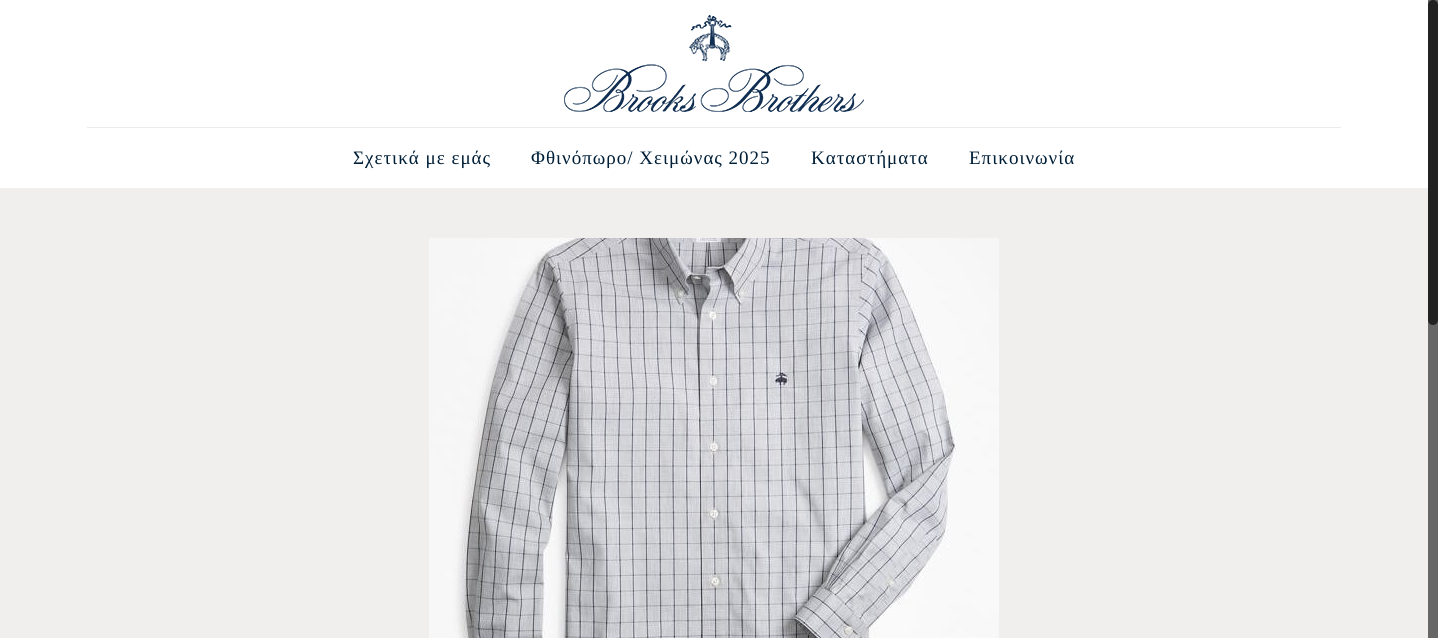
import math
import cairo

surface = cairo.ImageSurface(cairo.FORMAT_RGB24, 1438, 638)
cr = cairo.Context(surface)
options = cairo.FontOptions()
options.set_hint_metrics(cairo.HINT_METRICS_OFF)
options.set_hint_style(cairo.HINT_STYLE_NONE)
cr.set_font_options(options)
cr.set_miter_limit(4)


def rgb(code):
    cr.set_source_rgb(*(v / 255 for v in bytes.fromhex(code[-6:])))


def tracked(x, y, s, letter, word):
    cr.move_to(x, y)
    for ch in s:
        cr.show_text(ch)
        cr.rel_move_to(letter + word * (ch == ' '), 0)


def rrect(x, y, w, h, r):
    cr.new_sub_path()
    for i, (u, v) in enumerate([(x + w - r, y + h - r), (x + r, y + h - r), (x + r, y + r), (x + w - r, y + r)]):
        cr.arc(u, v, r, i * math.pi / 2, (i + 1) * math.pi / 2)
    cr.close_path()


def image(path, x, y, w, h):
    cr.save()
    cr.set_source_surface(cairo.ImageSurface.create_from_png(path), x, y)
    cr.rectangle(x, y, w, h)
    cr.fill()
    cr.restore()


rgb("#f0efed")
cr.paint()
rgb("#ffffff")
cr.rectangle(0, 0, 1428, 188)
cr.fill()
rgb("#ebebeb")
cr.rectangle(87, 127, 1254, 1)
cr.fill()
image("img/1.png", 564, 15, 300, 97)
image("img/2.png", 429, 238, 570, 400)
rgb("#666666")
cr.rectangle(1428, 0, 10, 638)
cr.fill()
rgb("#222222")
rrect(1428, 0, 10, 325, 5)
cr.fill()
cr.select_font_face("Liberation Serif")
cr.set_font_size(19)
rgb("#001f37")
for x, y, s in [
    (353, 164, "Σχετικά με εμάς"),
    (531, 164, "Φθινόπωρο/ Χειμώνας 2025"),
    (811, 164, "Καταστήματα"),
    (969, 164, "Επικοινωνία"),
]:
    tracked(x, y, s, 1, 0)
surface.write_to_png("page.png")
